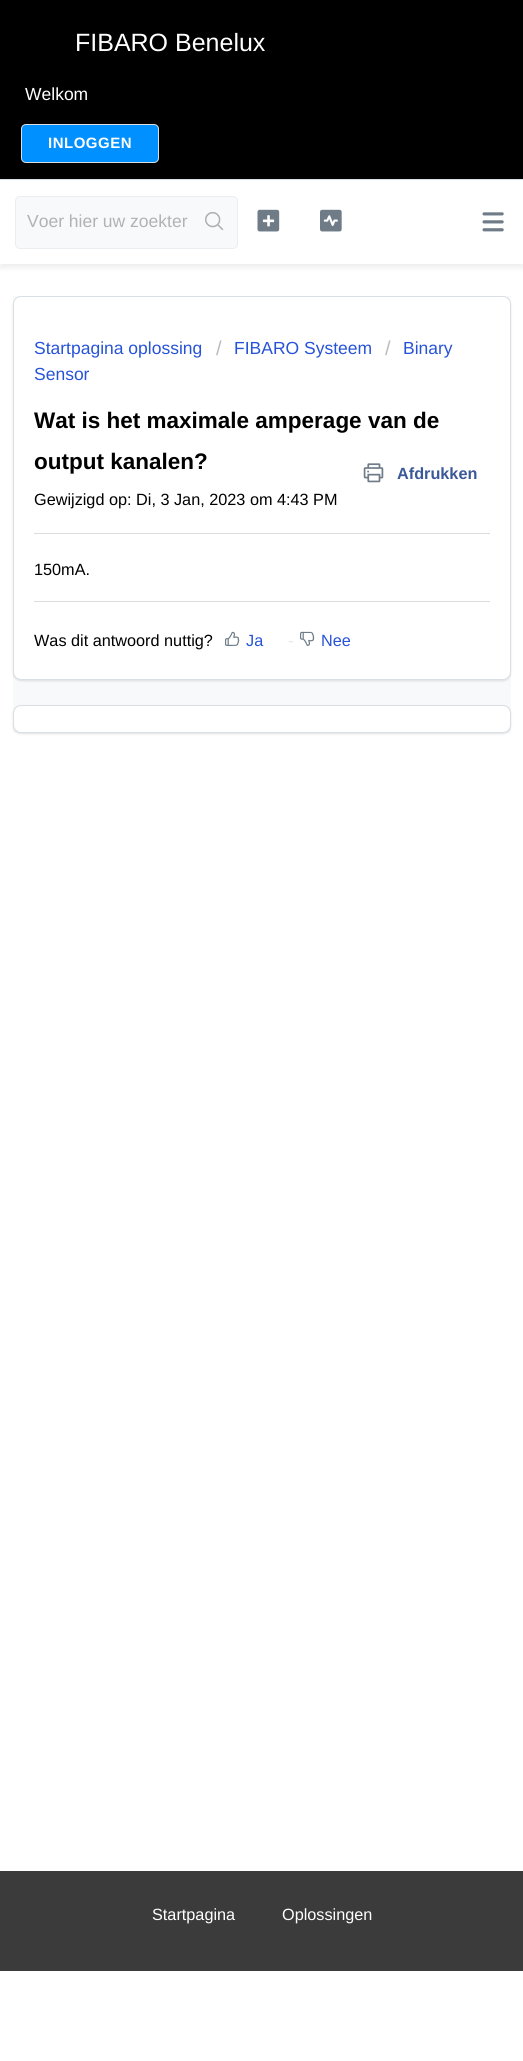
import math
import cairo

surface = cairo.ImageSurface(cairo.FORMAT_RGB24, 523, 2061)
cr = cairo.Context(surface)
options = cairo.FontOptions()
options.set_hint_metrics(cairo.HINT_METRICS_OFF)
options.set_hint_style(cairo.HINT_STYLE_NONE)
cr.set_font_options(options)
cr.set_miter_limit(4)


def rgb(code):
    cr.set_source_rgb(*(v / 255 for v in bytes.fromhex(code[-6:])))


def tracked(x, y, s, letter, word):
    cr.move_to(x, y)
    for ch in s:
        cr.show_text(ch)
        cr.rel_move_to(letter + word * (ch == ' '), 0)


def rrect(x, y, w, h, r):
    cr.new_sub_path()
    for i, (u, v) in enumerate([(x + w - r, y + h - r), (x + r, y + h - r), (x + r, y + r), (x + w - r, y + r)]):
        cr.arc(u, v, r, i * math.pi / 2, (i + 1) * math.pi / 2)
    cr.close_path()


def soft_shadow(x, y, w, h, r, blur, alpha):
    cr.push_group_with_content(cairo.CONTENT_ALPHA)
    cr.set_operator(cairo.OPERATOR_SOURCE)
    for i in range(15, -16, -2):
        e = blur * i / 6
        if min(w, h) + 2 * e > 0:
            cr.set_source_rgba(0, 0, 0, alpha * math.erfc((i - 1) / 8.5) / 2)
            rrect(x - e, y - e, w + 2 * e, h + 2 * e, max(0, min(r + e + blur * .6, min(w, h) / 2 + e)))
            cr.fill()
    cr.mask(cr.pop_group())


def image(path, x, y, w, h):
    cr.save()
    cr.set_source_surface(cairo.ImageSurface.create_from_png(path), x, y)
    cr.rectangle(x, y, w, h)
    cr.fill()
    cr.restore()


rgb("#ffffff")
cr.paint()
rgb("#000000")
cr.rectangle(0, 0, 523, 179)
cr.fill()
rgb("#dadfe3")
cr.rectangle(0, 179, 523, 1)
cr.fill()
rgb("#0090ff")
rrect(21.5, 124.5, 137, 38, 4.5)
cr.fill_preserve()
rgb("#dadfe3")
cr.set_line_width(1)
cr.stroke()
rgb("#eeeeee")
soft_shadow(0, 184, 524, 84, 0, 2.5, 1)
rgb("#ffffff")
cr.rectangle(0, 181, 523, 83)
cr.fill()
image("img/1.png", 482, 212, 22, 20)
rgb("#f8f9fa")
rrect(15.5, 196.5, 222, 52, 4.5)
cr.fill_preserve()
rgb("#ebeef0")
cr.stroke()
rgb("#f8f9fa")
rrect(193, 198, 43, 50, 2.5)
cr.fill()
image("img/2.png", 205, 212, 19, 19)
image("img/3.png", 257, 209, 23, 23)
image("img/4.png", 320, 209, 22, 23)
cr.rectangle(13, 296, 498, 437)
cr.fill()
rgb("#3f3f44")
soft_shadow(13, 298, 498, 383, 8, 1, 0.15)
rgb("#ffffff")
rrect(13.5, 296.5, 497, 383, 7.5)
cr.fill_preserve()
rgb("#dadfe3")
cr.stroke()
image("img/5.png", 363, 463, 21, 20)
rgb("#dcdcdc")
cr.rectangle(34, 533, 456, 1)
cr.fill()
cr.rectangle(34, 601, 456, 1)
cr.fill()
image("img/6.png", 225, 631, 15, 15)
image("img/7.png", 300, 631, 15, 15)
rgb("#3f3f44")
soft_shadow(13, 706, 498, 28, 8, 1, 0.15)
rgb("#ffffff")
rrect(13.5, 705.5, 497, 27, 7.5)
cr.fill_preserve()
rgb("#dadfe3")
cr.stroke()
rgb("#3b3b3b")
cr.rectangle(0, 1871, 523, 100)
cr.fill()
cr.select_font_face("Liberation Sans")
cr.set_font_size(25)
rgb("#ffffff")
cr.move_to(75, 51)
cr.show_text("FIBARO Benelux")
cr.set_font_size(17.5)
cr.move_to(25, 100)
cr.show_text("Welkom")
cr.select_font_face("Liberation Sans", cairo.FONT_SLANT_NORMAL, cairo.FONT_WEIGHT_BOLD)
cr.set_font_size(15)
tracked(48, 148, "INLOGGEN", 0.5, 0)
cr.select_font_face("Liberation Sans")
cr.set_font_size(17.5)
rgb("#b2b2b2")
cr.move_to(27, 227)
cr.show_text("Voer hier uw zoekter")
rgb("#2753d7")
cr.move_to(34, 354)
cr.show_text("Startpagina oplossing")
cr.set_font_size(20)
rgb("#bbbbbb")
cr.move_to(216, 355)
cr.show_text("/")
cr.set_font_size(17.5)
rgb("#2753d7")
cr.move_to(234, 354)
cr.show_text("FIBARO Systeem")
cr.set_font_size(20)
rgb("#bbbbbb")
cr.move_to(385, 355)
cr.show_text("/")
cr.set_font_size(17.5)
rgb("#2753d7")
cr.move_to(403, 354)
cr.show_text("Binary")
cr.move_to(34, 380)
cr.show_text("Sensor")
cr.select_font_face("Liberation Sans", cairo.FONT_SLANT_NORMAL, cairo.FONT_WEIGHT_BOLD)
cr.set_font_size(22.5)
rgb("#000000")
cr.move_to(34, 428)
cr.show_text("Wat is het maximale amperage van de")
cr.move_to(34, 469)
cr.show_text("output kanalen?")
cr.set_font_size(16.25)
rgb("#3b5998")
cr.move_to(397, 479)
cr.show_text("Afdrukken")
cr.select_font_face("Liberation Sans")
rgb("#000000")
for x, y, s in [
    (34, 505, "Gewijzigd op: Di, 3 Jan, 2023 om 4:43 PM"),
    (34, 575, "150mA."),
    (34, 646, "Was dit antwoord nuttig?"),
]:
    cr.move_to(x, y)
    cr.show_text(s)
rgb("#2753d7")
cr.move_to(246, 646)
cr.show_text("Ja")
rgb("#e5e5e5")
cr.move_to(288, 646)
cr.show_text("-")
rgb("#2753d7")
cr.move_to(321, 646)
cr.show_text("Nee")
rgb("#ffffff")
cr.move_to(152, 1920)
cr.show_text("Startpagina")
cr.move_to(282, 1920)
cr.show_text("Oplossingen")
surface.write_to_png("page.png")
